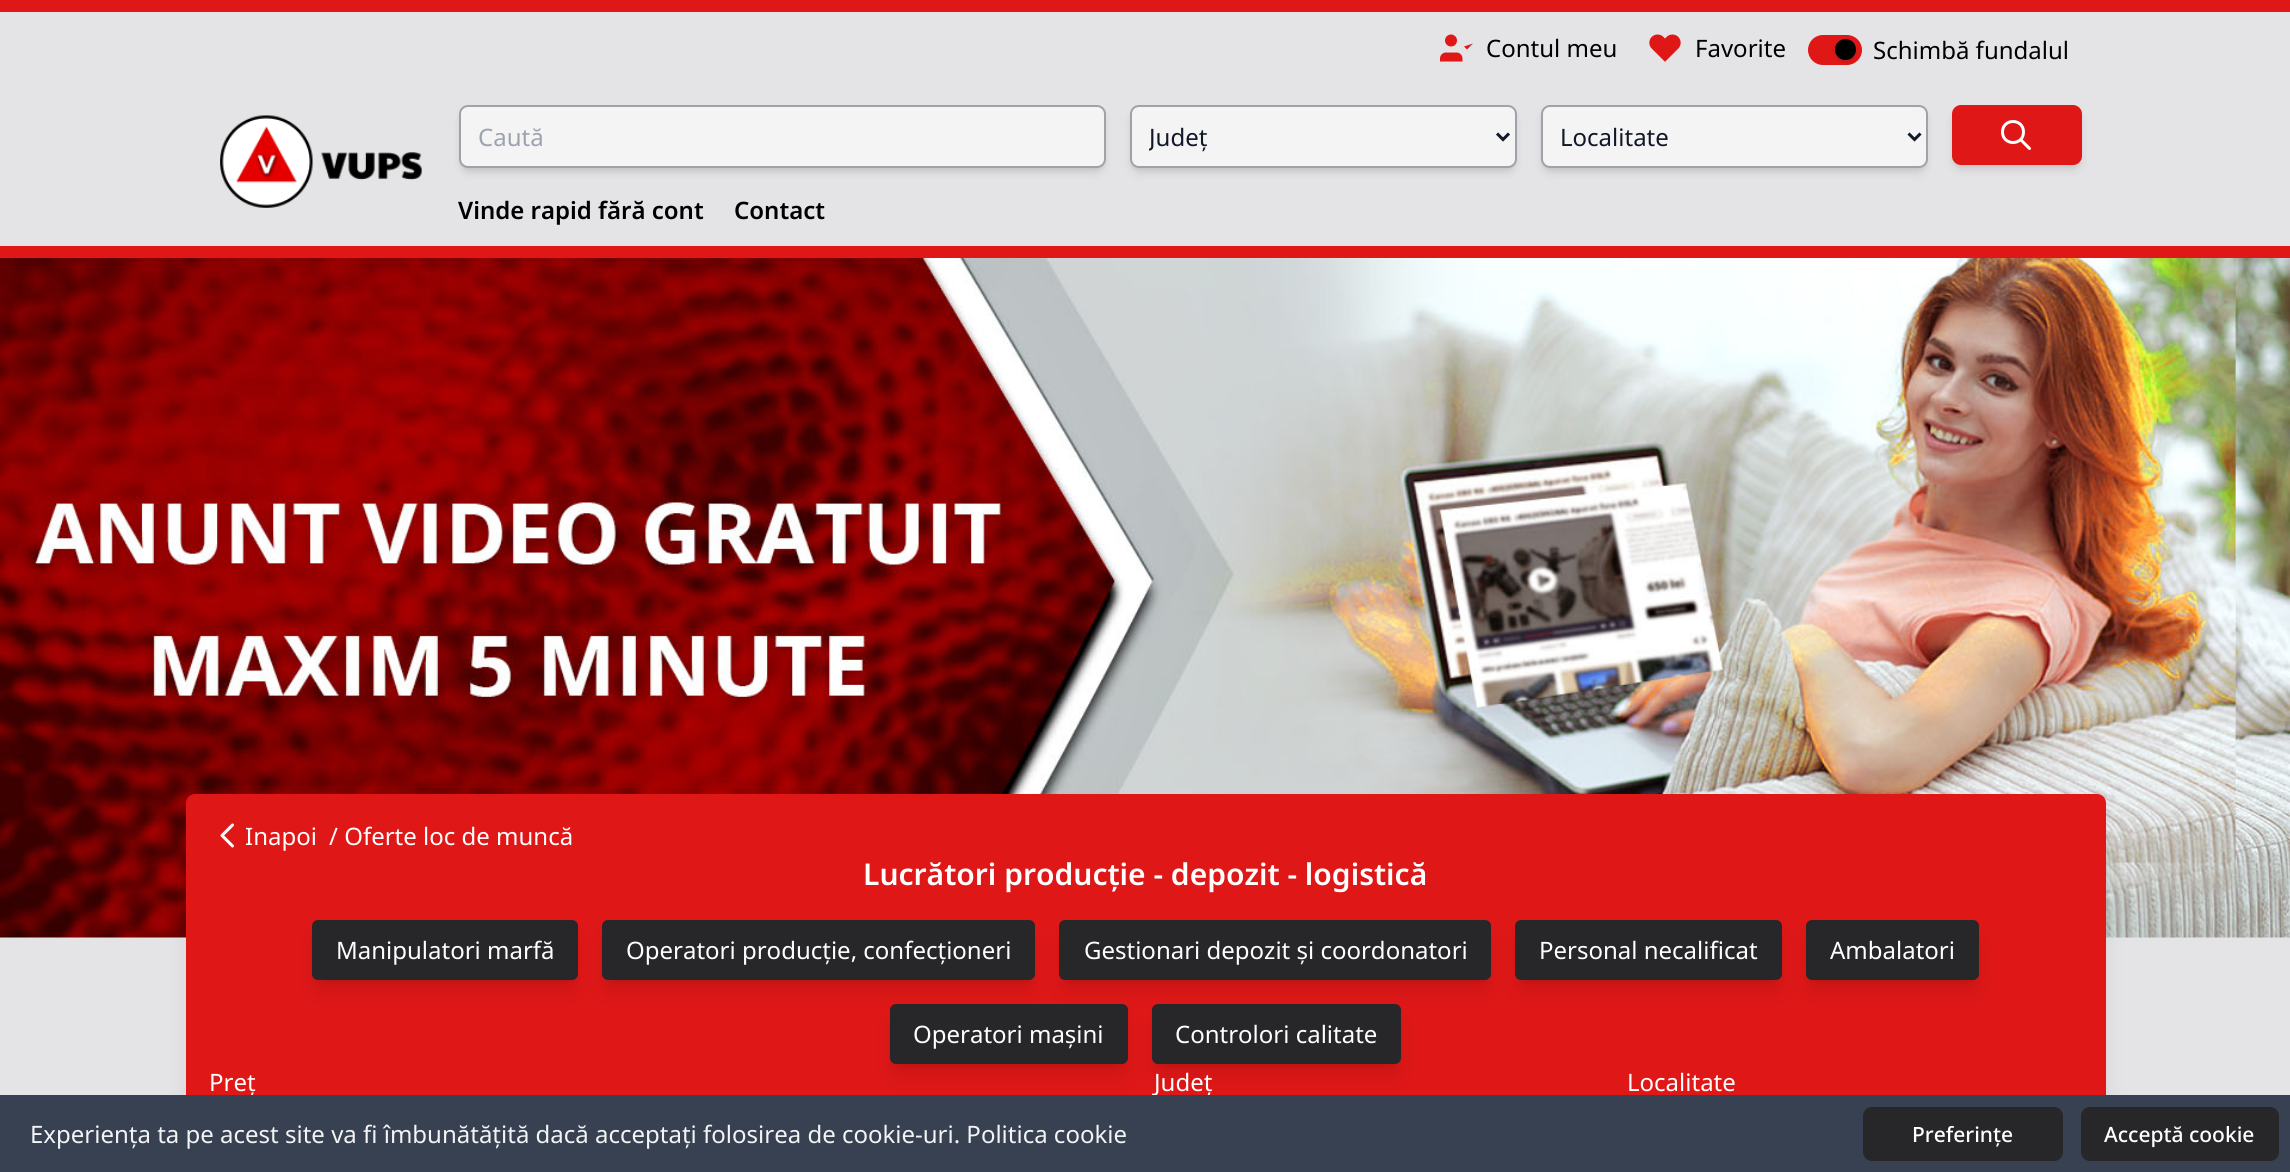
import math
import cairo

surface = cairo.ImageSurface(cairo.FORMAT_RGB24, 2290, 1172)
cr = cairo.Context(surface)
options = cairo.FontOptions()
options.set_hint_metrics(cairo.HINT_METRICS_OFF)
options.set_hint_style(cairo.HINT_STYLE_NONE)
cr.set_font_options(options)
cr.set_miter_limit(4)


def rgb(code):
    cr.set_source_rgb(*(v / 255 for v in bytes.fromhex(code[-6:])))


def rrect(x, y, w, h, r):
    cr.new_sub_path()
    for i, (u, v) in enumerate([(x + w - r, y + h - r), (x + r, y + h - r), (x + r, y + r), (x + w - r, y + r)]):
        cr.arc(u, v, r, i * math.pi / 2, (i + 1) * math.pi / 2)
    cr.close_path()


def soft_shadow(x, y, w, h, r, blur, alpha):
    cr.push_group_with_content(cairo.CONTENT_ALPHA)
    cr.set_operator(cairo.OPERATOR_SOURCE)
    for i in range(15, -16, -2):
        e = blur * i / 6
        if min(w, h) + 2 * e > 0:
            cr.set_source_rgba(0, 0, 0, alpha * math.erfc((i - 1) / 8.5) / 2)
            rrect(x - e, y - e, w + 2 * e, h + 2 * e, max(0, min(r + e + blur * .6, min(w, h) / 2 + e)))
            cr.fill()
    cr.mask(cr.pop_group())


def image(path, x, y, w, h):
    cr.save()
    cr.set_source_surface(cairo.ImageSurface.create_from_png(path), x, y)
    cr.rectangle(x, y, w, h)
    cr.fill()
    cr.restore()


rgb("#e4e4e7")
cr.paint()
rgb("#df1717")
cr.rectangle(0, 0, 2290, 12)
cr.fill()
cr.rectangle(0, 246, 2290, 12)
cr.fill()
image("img/1.png", 1440, 34, 33, 28)
image("img/2.png", 1649, 34, 32, 28)
rrect(1808, 35, 54, 30, 15)
cr.fill()
rgb("#000000")
soft_shadow(1836, 42, 18, 18, 9, 1.5, 0.1)
soft_shadow(1835, 41, 21, 21, 10.5, 2, 0.1)
rgb("#000000")
cr.arc(1845.5, 49.5, 10.5, 0, 2 * math.pi)
cr.fill()
image("img/3.png", 220, 115, 202, 93)
rgb("#000000")
soft_shadow(462, 111, 641, 57, 6, 3, 0.1)
soft_shadow(461, 113, 643, 60, 8, 4.5, 0.1)
rgb("#f4f4f5")
rrect(460, 106, 645, 61, 8)
cr.fill_preserve()
rgb("#a1a1aa")
cr.stroke()
rgb("#000000")
soft_shadow(1133, 111, 381, 57, 6, 3, 0.1)
soft_shadow(1131, 113, 384, 60, 8, 4.5, 0.1)
rgb("#f4f4f5")
rrect(1131, 106, 385, 61, 8)
cr.fill_preserve()
rgb("#a1a1aa")
cr.stroke()
cr.new_path()
cr.move_to(1497, 133.5)
cr.line_to(1503, 139.5)
cr.line_to(1509, 133.5)
rgb("#111827")
cr.set_line_width(3)
cr.stroke()
rgb("#000000")
soft_shadow(1544, 111, 381, 57, 6, 3, 0.1)
soft_shadow(1542, 113, 384, 60, 8, 4.5, 0.1)
rgb("#f4f4f5")
rrect(1542, 106, 385, 61, 8)
cr.fill_preserve()
rgb("#a1a1aa")
cr.set_line_width(2)
cr.stroke()
cr.new_path()
cr.move_to(1908.5, 133.5)
cr.line_to(1914.5, 139.5)
cr.line_to(1920.5, 133.5)
rgb("#111827")
cr.set_line_width(3)
cr.stroke()
rgb("#000000")
soft_shadow(1955, 111, 124, 54, 6, 3, 0.1)
soft_shadow(1953, 113, 128, 57, 8, 4.5, 0.1)
rgb("#df1717")
rrect(1952, 105, 130, 60, 9)
cr.fill()
cr.new_path()
cr.move_to(2029.5, 148.5)
cr.line_to(2020.5, 139.5)
cr.move_to(2023.5, 132)
cr.curve_to(2023.5, 146, 2002.5, 146, 2002.5, 132)
cr.curve_to(2002.5, 118, 2023.5, 118, 2023.5, 132)
cr.close_path()
rgb("#ffffff")
cr.set_line_cap(cairo.LINE_CAP_ROUND)
cr.set_line_join(cairo.LINE_JOIN_ROUND)
cr.stroke()
image("img/4.png", 0, 258, 2290, 680)
rgb("#000000")
soft_shadow(191, 813, 1911, 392, 0, 11, 0.1)
rgb("#df1717")
rrect(186, 794, 1920, 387, 9)
cr.fill()
cr.new_path()
cr.move_to(232.5, 846)
cr.line_to(222, 835.5)
cr.line_to(232.5, 825)
rgb("#ffffff")
cr.stroke()
rgb("#000000")
soft_shadow(318, 932, 254, 48, 0, 4.5, 0.1)
soft_shadow(317, 939, 256, 51, 1.5, 11, 0.1)
rgb("#27272a")
rrect(312, 920, 266, 60, 6)
cr.fill()
rgb("#000000")
soft_shadow(608, 932, 421, 48, 0, 4.5, 0.1)
soft_shadow(606, 939, 425, 51, 1.5, 11, 0.1)
rgb("#27272a")
rrect(602, 920, 433, 60, 6)
cr.fill()
rgb("#000000")
soft_shadow(1065, 932, 420, 48, 0, 4.5, 0.1)
soft_shadow(1064, 939, 423, 51, 1.5, 11, 0.1)
rgb("#27272a")
rrect(1059, 920, 432, 60, 6)
cr.fill()
rgb("#000000")
soft_shadow(1521, 932, 255, 48, 0, 4.5, 0.1)
soft_shadow(1520, 939, 258, 51, 1.5, 11, 0.1)
rgb("#27272a")
rrect(1515, 920, 267, 60, 6)
cr.fill()
rgb("#000000")
soft_shadow(1812, 932, 161, 48, 0, 4.5, 0.1)
soft_shadow(1811, 939, 163, 51, 1.5, 11, 0.1)
rgb("#27272a")
rrect(1806, 920, 173, 60, 6)
cr.fill()
rgb("#000000")
soft_shadow(896, 1016, 226, 48, 0, 4.5, 0.1)
soft_shadow(894, 1023, 230, 51, 1.5, 11, 0.1)
rgb("#27272a")
rrect(890, 1004, 238, 60, 6)
cr.fill()
rgb("#000000")
soft_shadow(1158, 1016, 237, 48, 0, 4.5, 0.1)
soft_shadow(1157, 1023, 240, 51, 1.5, 11, 0.1)
rgb("#27272a")
rrect(1152, 1004, 249, 60, 6)
cr.fill()
cr.select_font_face("Noto Sans")
cr.set_font_size(24)
rgb("#000000")
for x, y, s in [
    (1486, 57, "Contul meu"),
    (1695, 57, "Favorite"),
    (1873, 59, "Schimbă fundalul"),
]:
    cr.move_to(x, y)
    cr.show_text(s)
rgb("#9ca3af")
cr.move_to(478, 146)
cr.show_text("Caută")
cr.save()
cr.rectangle(1149, 119, 330, 36)
cr.clip()
rgb("#111827")
cr.move_to(1149, 146)
cr.show_text("Județ")
cr.restore()
rgb("#111827")
cr.move_to(1560, 146)
cr.show_text("Localitate")
cr.select_font_face("Noto Sans SemiBold")
rgb("#000000")
cr.move_to(458, 219)
cr.show_text("Vinde rapid fără cont")
cr.move_to(734, 219)
cr.show_text("Contact")
cr.select_font_face("Noto Sans")
rgb("#ffffff")
cr.move_to(245, 845)
cr.show_text("Inapoi")
cr.move_to(329, 845)
cr.show_text("/ Oferte loc de muncă")
cr.select_font_face("Noto Sans SemiBold")
cr.set_font_size(30)
cr.move_to(863, 885)
cr.show_text("Lucrători producție - depozit - logistică")
cr.select_font_face("Noto Sans")
cr.set_font_size(24)
for x, y, s in [
    (336, 959, "Manipulatori marfă"),
    (626, 959, "Operatori producție, confecționeri"),
    (1084, 959, "Gestionari depozit și coordonatori"),
    (1539, 959, "Personal necalificat"),
    (1830, 959, "Ambalatori"),
    (913, 1043, "Operatori mașini"),
    (1175, 1043, "Controlori calitate"),
    (209, 1091, "Preț"),
    (1154, 1091, "Județ"),
    (1627, 1091, "Localitate"),
]:
    cr.move_to(x, y)
    cr.show_text(s)
rgb("#374151")
cr.rectangle(0, 1095, 2290, 77)
cr.fill()
rgb("#f3f4f6")
cr.move_to(30, 1143)
cr.show_text("Experiența ta pe acest site va fi îmbunătățită dacă acceptați folosirea de cookie-uri. Politica cookie")
rgb("#27272a")
rrect(1863, 1107, 200, 54, 9)
cr.fill()
cr.select_font_face("Noto Sans Medium")
cr.set_font_size(21)
rgb("#ffffff")
cr.move_to(1912, 1142)
cr.show_text("Preferințe")
rgb("#27272a")
rrect(2081, 1107, 198, 54, 9)
cr.fill()
rgb("#ffffff")
cr.move_to(2104, 1142)
cr.show_text("Acceptă cookie")
surface.write_to_png("page.png")
